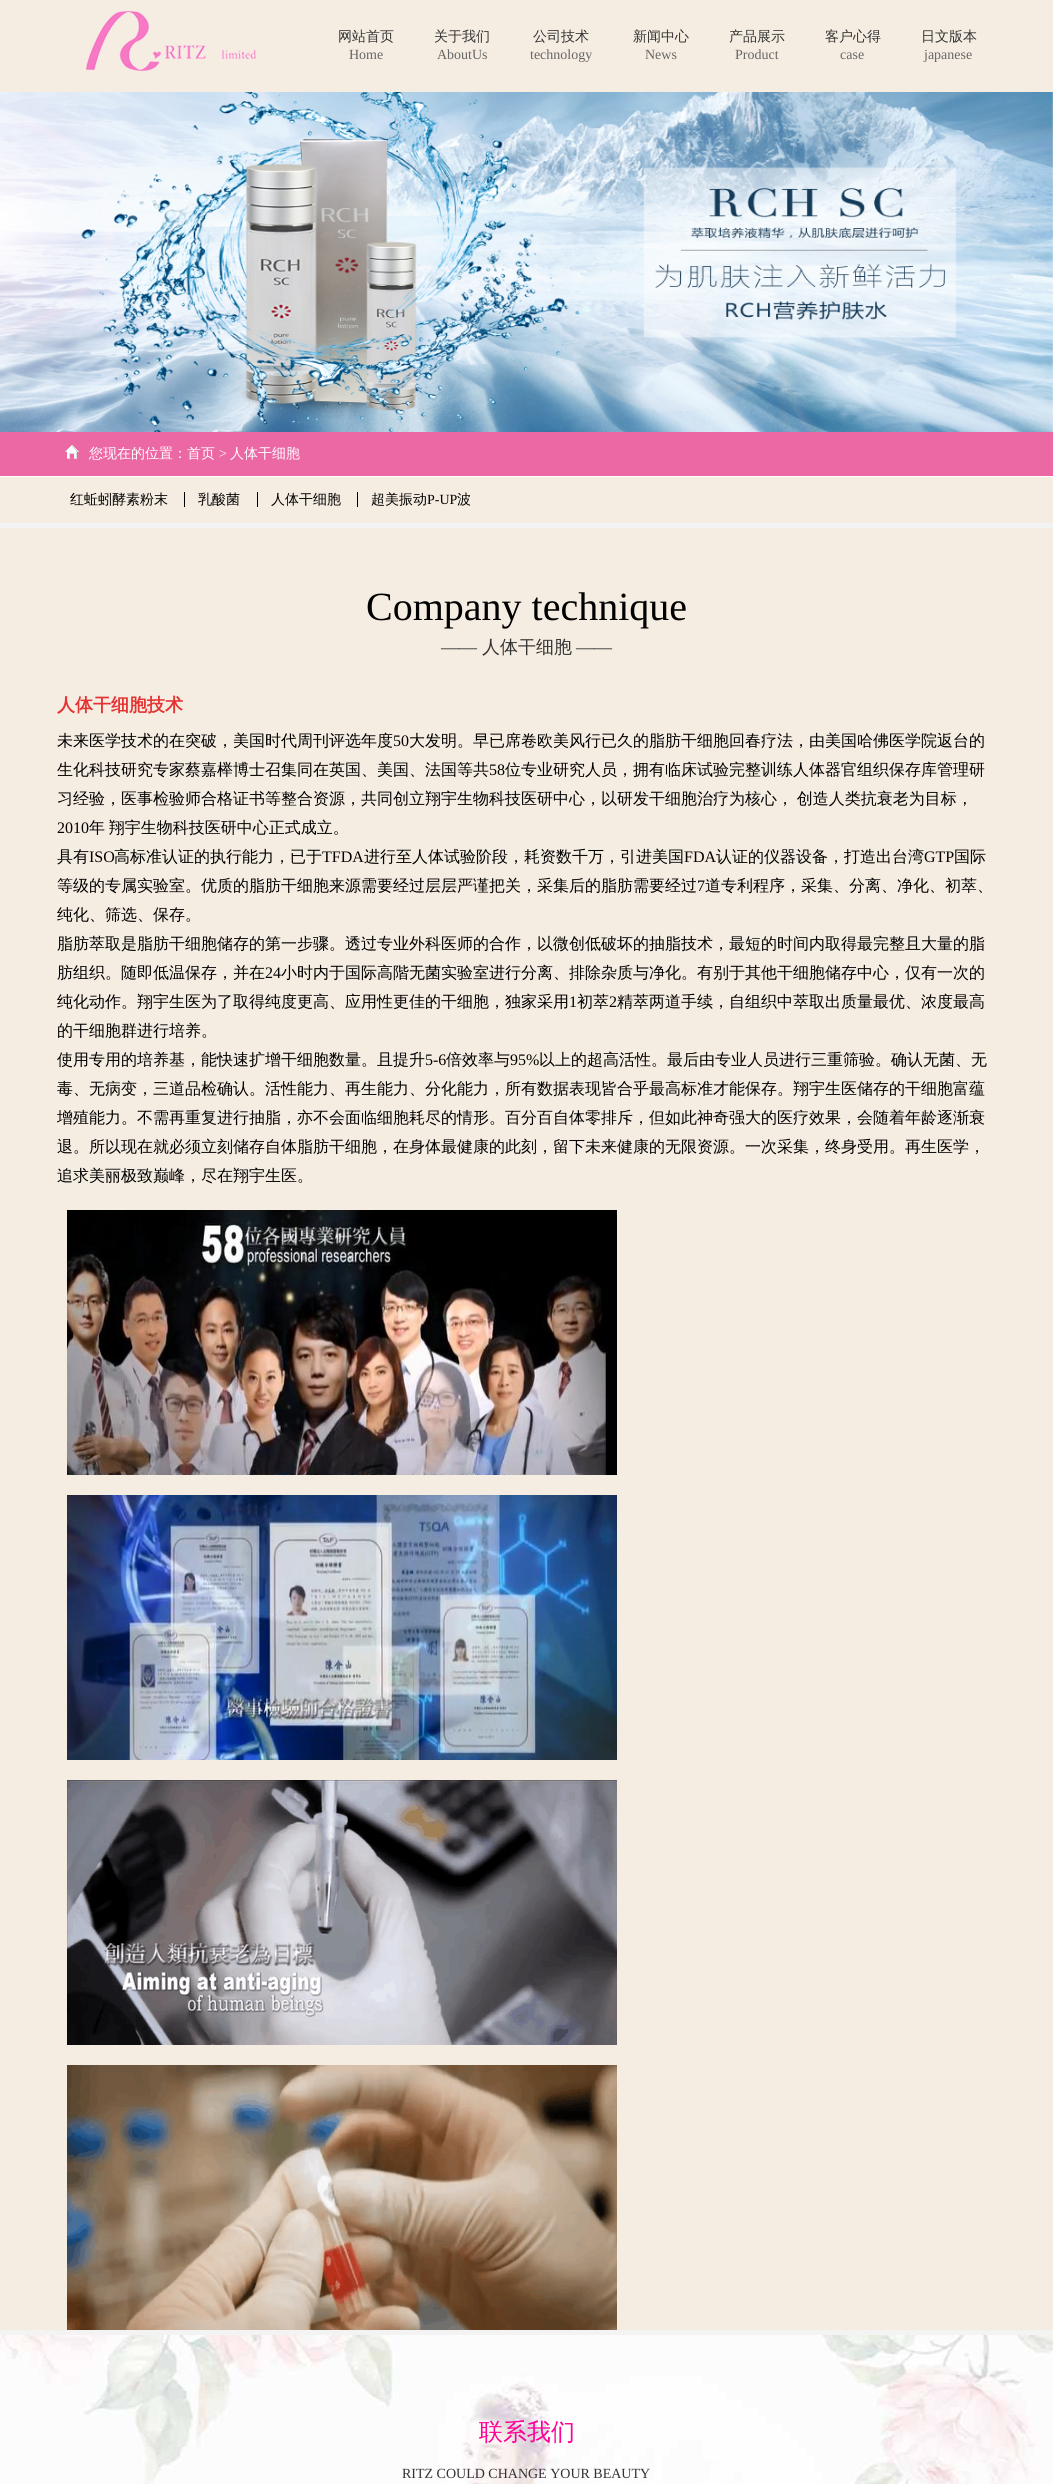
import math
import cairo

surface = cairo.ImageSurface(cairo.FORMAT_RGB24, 1053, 2484)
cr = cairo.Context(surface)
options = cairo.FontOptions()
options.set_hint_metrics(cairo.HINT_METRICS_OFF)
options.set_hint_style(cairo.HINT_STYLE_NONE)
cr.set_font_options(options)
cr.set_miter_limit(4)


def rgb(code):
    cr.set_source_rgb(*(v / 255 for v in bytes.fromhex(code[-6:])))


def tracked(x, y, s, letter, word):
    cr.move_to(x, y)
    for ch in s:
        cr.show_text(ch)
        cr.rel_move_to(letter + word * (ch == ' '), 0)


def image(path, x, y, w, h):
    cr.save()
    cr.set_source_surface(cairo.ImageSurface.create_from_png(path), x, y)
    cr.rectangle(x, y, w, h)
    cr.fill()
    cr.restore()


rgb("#f6ede2")
cr.paint()
image("img/1.png", 86, 11, 170, 60)
image("img/2.png", 0, 92, 1053, 340)
rgb("#ec68a4")
cr.rectangle(0, 432, 1053, 44)
cr.fill()
rgb("#ffffff")
cr.rectangle(0, 476, 1053, 1)
cr.fill()
image("img/3.png", 65, 445, 14, 14)
for x, y, w, h, color in [
    (184, 492, 1, 15, "#000000"),
    (257, 492, 1, 15, "#000000"),
    (357, 492, 1, 15, "#000000"),
    (0, 523, 1053, 5, "#f3f3f3"),
]:
    rgb(color)
    cr.rectangle(x, y, w, h)
    cr.fill()
image("img/4.png", 67, 1210, 550, 265)
image("img/5.png", 67, 1495, 550, 265)
image("img/6.png", 67, 1780, 550, 265)
image("img/7.png", 67, 2065, 550, 265)
cr.rectangle(0, 2330, 1053, 5)
cr.fill()
image("img/8.png", 0, 2335, 1053, 149)
cr.select_font_face("WenQuanYi Zen Hei Medium")
cr.set_font_size(14)
rgb("#333333")
cr.move_to(338, 41)
cr.show_text("网站首页")
cr.select_font_face("Liberation Serif")
rgb("#666666")
cr.move_to(349, 59)
cr.show_text("Home")
cr.select_font_face("WenQuanYi Zen Hei Medium")
rgb("#333333")
cr.move_to(434, 41)
cr.show_text("关于我们")
cr.select_font_face("Liberation Serif")
rgb("#666666")
cr.move_to(437, 59)
cr.show_text("AboutUs")
cr.select_font_face("WenQuanYi Zen Hei Medium")
rgb("#333333")
cr.move_to(533, 41)
cr.show_text("公司技术")
cr.select_font_face("Liberation Serif")
rgb("#666666")
cr.move_to(530, 59)
cr.show_text("technology")
cr.select_font_face("WenQuanYi Zen Hei Medium")
rgb("#333333")
cr.move_to(633, 41)
cr.show_text("新闻中心")
cr.select_font_face("Liberation Serif")
rgb("#666666")
cr.move_to(645, 59)
cr.show_text("News")
cr.select_font_face("WenQuanYi Zen Hei Medium")
rgb("#333333")
cr.move_to(729, 41)
cr.show_text("产品展示")
cr.select_font_face("Liberation Serif")
rgb("#666666")
cr.move_to(735, 59)
cr.show_text("Product")
cr.select_font_face("WenQuanYi Zen Hei Medium")
rgb("#333333")
cr.move_to(825, 41)
cr.show_text("客户心得")
cr.select_font_face("Liberation Serif")
rgb("#666666")
cr.move_to(840, 59)
cr.show_text("case")
cr.select_font_face("WenQuanYi Zen Hei Medium")
rgb("#333333")
cr.move_to(921, 41)
cr.show_text("日文版本")
cr.select_font_face("Liberation Serif")
rgb("#666666")
cr.move_to(924, 59)
cr.show_text("japanese")
cr.select_font_face("WenQuanYi Zen Hei Medium")
rgb("#ffffff")
cr.move_to(89, 458)
cr.show_text("您现在的位置：首页")
cr.select_font_face("Liberation Serif")
cr.move_to(219, 458)
cr.show_text(">")
cr.select_font_face("WenQuanYi Zen Hei Medium")
cr.move_to(230, 458)
cr.show_text("人体干细胞")
rgb("#000000")
for x, y, s in [
    (70, 504, "红蚯蚓酵素粉末"),
    (198, 504, "乳酸菌"),
    (271, 504, "人体干细胞"),
    (371, 504, "超美振动"),
]:
    cr.move_to(x, y)
    cr.show_text(s)
cr.select_font_face("Liberation Serif")
cr.move_to(427, 504)
cr.show_text("P-UP")
cr.select_font_face("WenQuanYi Zen Hei Medium")
cr.move_to(457, 504)
cr.show_text("波")
cr.select_font_face("Liberation Serif")
cr.set_font_size(40)
cr.move_to(366, 620)
cr.show_text("Company technique")
cr.set_font_size(18)
rgb("#333333")
cr.move_to(441, 653)
cr.show_text("——")
cr.select_font_face("WenQuanYi Zen Hei Medium")
cr.move_to(482, 653)
cr.show_text("人体干细胞")
cr.select_font_face("Liberation Serif")
cr.move_to(576, 653)
cr.show_text("——")
cr.select_font_face("WenQuanYi Zen Hei", cairo.FONT_SLANT_NORMAL, cairo.FONT_WEIGHT_BOLD)
rgb("#e53333")
cr.move_to(57, 711)
cr.show_text("人体干细胞技术")
cr.select_font_face("WenQuanYi Zen Hei Medium")
cr.set_font_size(16)
rgb("#000000")
cr.move_to(57, 746)
cr.show_text("未来医学技术的在突破，美国时代周刊评选年度")
cr.select_font_face("Liberation Serif")
cr.move_to(393, 746)
cr.show_text("50")
cr.select_font_face("WenQuanYi Zen Hei Medium")
cr.move_to(409, 746)
cr.show_text("大发明。早已席卷欧美风行已久的脂肪干细胞回春疗法，由美国哈佛医学院返台的")
cr.move_to(57, 775)
cr.show_text("生化科技研究专家蔡嘉榉博士召集同在英国、美国、法国等共")
cr.select_font_face("Liberation Serif")
cr.move_to(489, 775)
cr.show_text("58")
cr.select_font_face("WenQuanYi Zen Hei Medium")
cr.move_to(505, 775)
cr.show_text("位专业研究人员，拥有临床试验完整训练人体器官组织保存库管理研")
tracked(57, 804, "习经验，医事检验师合格证书等整合资源，共同创立翔宇生物科技医研中心，以研发干细胞治疗为核心， 创造人类抗衰老为目标，", 0, -1)
cr.select_font_face("Liberation Serif")
cr.move_to(57, 833)
cr.show_text("2010")
cr.select_font_face("WenQuanYi Zen Hei Medium")
tracked(89, 833, "年 翔宇生物科技医研中心正式成立。", 0, -1)
cr.move_to(57, 862)
cr.show_text("具有")
cr.select_font_face("Liberation Serif")
cr.move_to(89, 862)
cr.show_text("ISO")
cr.select_font_face("WenQuanYi Zen Hei Medium")
cr.move_to(114, 862)
cr.show_text("高标准认证的执行能力，已于")
cr.select_font_face("Liberation Serif")
cr.move_to(322, 862)
cr.show_text("TFDA")
cr.select_font_face("WenQuanYi Zen Hei Medium")
cr.move_to(364, 862)
cr.show_text("进行至人体试验阶段，耗资数千万，引进美国")
cr.select_font_face("Liberation Serif")
cr.move_to(684, 862)
cr.show_text("FDA")
cr.select_font_face("WenQuanYi Zen Hei Medium")
cr.move_to(716, 862)
cr.show_text("认证的仪器设备，打造出台湾")
cr.select_font_face("Liberation Serif")
cr.move_to(924, 862)
cr.show_text("GTP")
cr.select_font_face("WenQuanYi Zen Hei Medium")
cr.move_to(954, 862)
cr.show_text("国际")
cr.move_to(57, 891)
cr.show_text("等级的专属实验室。优质的脂肪干细胞来源需要经过层层严谨把关，采集后的脂肪需要经过")
cr.select_font_face("Liberation Serif")
cr.move_to(697, 891)
cr.show_text("7")
cr.select_font_face("WenQuanYi Zen Hei Medium")
for x, y, s in [
    (705, 891, "道专利程序，采集、分离、净化、初萃、"),
    (57, 920, "纯化、筛选、保存。"),
    (57, 949, "脂肪萃取是脂肪干细胞储存的第一步骤。透过专业外科医师的合作，以微创低破坏的抽脂技术，最短的时间内取得最完整且大量的脂"),
    (57, 978, "肪组织。随即低温保存，并在"),
]:
    cr.move_to(x, y)
    cr.show_text(s)
cr.select_font_face("Liberation Serif")
cr.move_to(265, 978)
cr.show_text("24")
cr.select_font_face("WenQuanYi Zen Hei Medium")
cr.move_to(281, 978)
cr.show_text("小时内于国际高階无菌实验室进行分离、排除杂质与净化。有别于其他干细胞储存中心，仅有一次的")
cr.move_to(57, 1007)
cr.show_text("纯化动作。翔宇生医为了取得纯度更高、应用性更佳的干细胞，独家采用")
cr.select_font_face("Liberation Serif")
cr.move_to(569, 1007)
cr.show_text("1")
cr.select_font_face("WenQuanYi Zen Hei Medium")
cr.move_to(577, 1007)
cr.show_text("初萃")
cr.select_font_face("Liberation Serif")
cr.move_to(609, 1007)
cr.show_text("2")
cr.select_font_face("WenQuanYi Zen Hei Medium")
for x, y, s in [
    (617, 1007, "精萃两道手续，自组织中萃取出质量最优、浓度最高"),
    (57, 1036, "的干细胞群进行培养。"),
    (57, 1065, "使用专用的培养基，能快速扩增干细胞数量。且提升"),
]:
    cr.move_to(x, y)
    cr.show_text(s)
cr.select_font_face("Liberation Serif")
cr.move_to(425, 1065)
cr.show_text("5-6")
cr.select_font_face("WenQuanYi Zen Hei Medium")
cr.move_to(446, 1065)
cr.show_text("倍效率与")
cr.select_font_face("Liberation Serif")
cr.move_to(510, 1065)
cr.show_text("95%")
cr.select_font_face("WenQuanYi Zen Hei Medium")
for x, y, s in [
    (539, 1065, "以上的超高活性。最后由专业人员进行三重筛验。确认无菌、无"),
    (57, 1094, "毒、无病变，三道品检确认。活性能力、再生能力、分化能力，所有数据表现皆合乎最高标准才能保存。翔宇生医储存的干细胞富蕴"),
    (57, 1123, "增殖能力。不需再重复进行抽脂，亦不会面临细胞耗尽的情形。百分百自体零排斥，但如此神奇强大的医疗效果，会随着年龄逐渐衰"),
    (57, 1152, "退。所以现在就必须立刻储存自体脂肪干细胞，在身体最健康的此刻，留下未来健康的无限资源。一次采集，终身受用。再生医学，"),
    (57, 1181, "追求美丽极致巅峰，尽在翔宇生医。"),
]:
    cr.move_to(x, y)
    cr.show_text(s)
cr.set_font_size(24)
rgb("#ff0099")
cr.move_to(479, 2440)
cr.show_text("联系我们")
cr.select_font_face("Liberation Serif")
cr.set_font_size(14)
rgb("#333333")
cr.move_to(402, 2478)
cr.show_text("RITZ COULD CHANGE YOUR BEAUTY")
surface.write_to_png("page.png")
